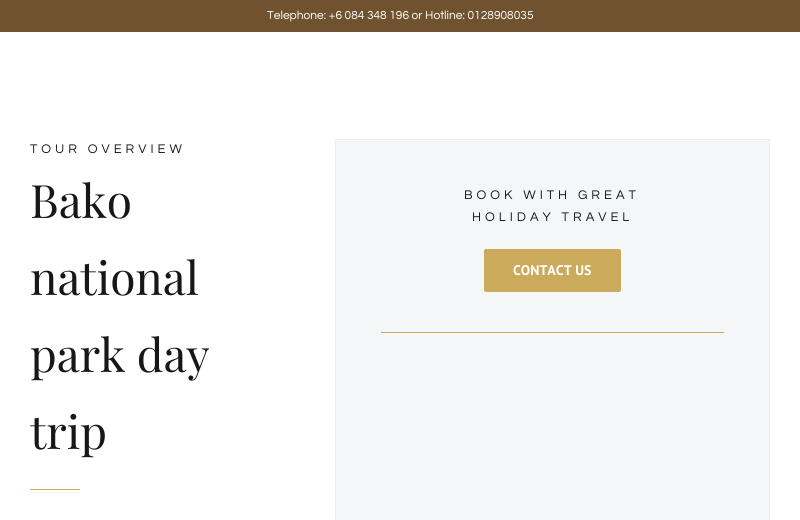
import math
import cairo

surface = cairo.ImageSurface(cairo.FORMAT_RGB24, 800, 520)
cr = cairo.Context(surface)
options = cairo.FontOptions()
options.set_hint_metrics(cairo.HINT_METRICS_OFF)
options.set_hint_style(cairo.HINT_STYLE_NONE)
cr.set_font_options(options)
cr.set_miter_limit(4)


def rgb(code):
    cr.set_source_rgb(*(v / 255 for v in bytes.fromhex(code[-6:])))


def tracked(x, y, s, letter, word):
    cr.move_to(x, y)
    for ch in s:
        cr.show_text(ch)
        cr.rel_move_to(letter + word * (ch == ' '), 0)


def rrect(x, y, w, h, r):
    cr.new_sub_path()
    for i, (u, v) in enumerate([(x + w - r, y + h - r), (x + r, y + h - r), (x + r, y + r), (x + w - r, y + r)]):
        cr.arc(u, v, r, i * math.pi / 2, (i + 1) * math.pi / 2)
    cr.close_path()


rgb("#ffffff")
cr.paint()
rgb("#70532e")
cr.rectangle(0, 0, 800, 32)
cr.fill()
rgb("#cbaa5c")
cr.rectangle(30, 489, 50, 1)
cr.fill()
rgb("#f4f6f8")
cr.rectangle(335.5, 139.5, 434, 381)
cr.fill_preserve()
rgb("#ebeef1")
cr.set_line_width(1)
cr.stroke()
rgb("#cbaa5c")
rrect(484, 249, 137, 43, 2)
cr.fill()
cr.rectangle(381, 332, 343, 1)
cr.fill()
cr.select_font_face("Questrial")
cr.set_font_size(12)
rgb("#ffffff")
cr.move_to(267, 19)
cr.show_text("Telephone: +6 084 348 196 or Hotline: 0128908035")
cr.set_font_size(13)
rgb("#171717")
tracked(30, 153, "TOUR OVERVIEW", 4, 0)
cr.select_font_face("Playfair Display")
cr.set_font_size(46)
for x, y, s in [
    (30, 218, "Bako"),
    (30, 295, "national"),
    (30, 372, "park day"),
    (30, 449, "trip"),
]:
    cr.move_to(x, y)
    cr.show_text(s)
cr.select_font_face("Questrial")
cr.set_font_size(13)
tracked(464, 199, "BOOK WITH GREAT", 4, 0)
tracked(472, 221, "HOLIDAY TRAVEL", 4, 0)
cr.select_font_face("PT Sans", cairo.FONT_SLANT_NORMAL, cairo.FONT_WEIGHT_BOLD)
cr.set_font_size(14)
rgb("#ffffff")
cr.move_to(513, 275)
cr.show_text("CONTACT US")
surface.write_to_png("page.png")
